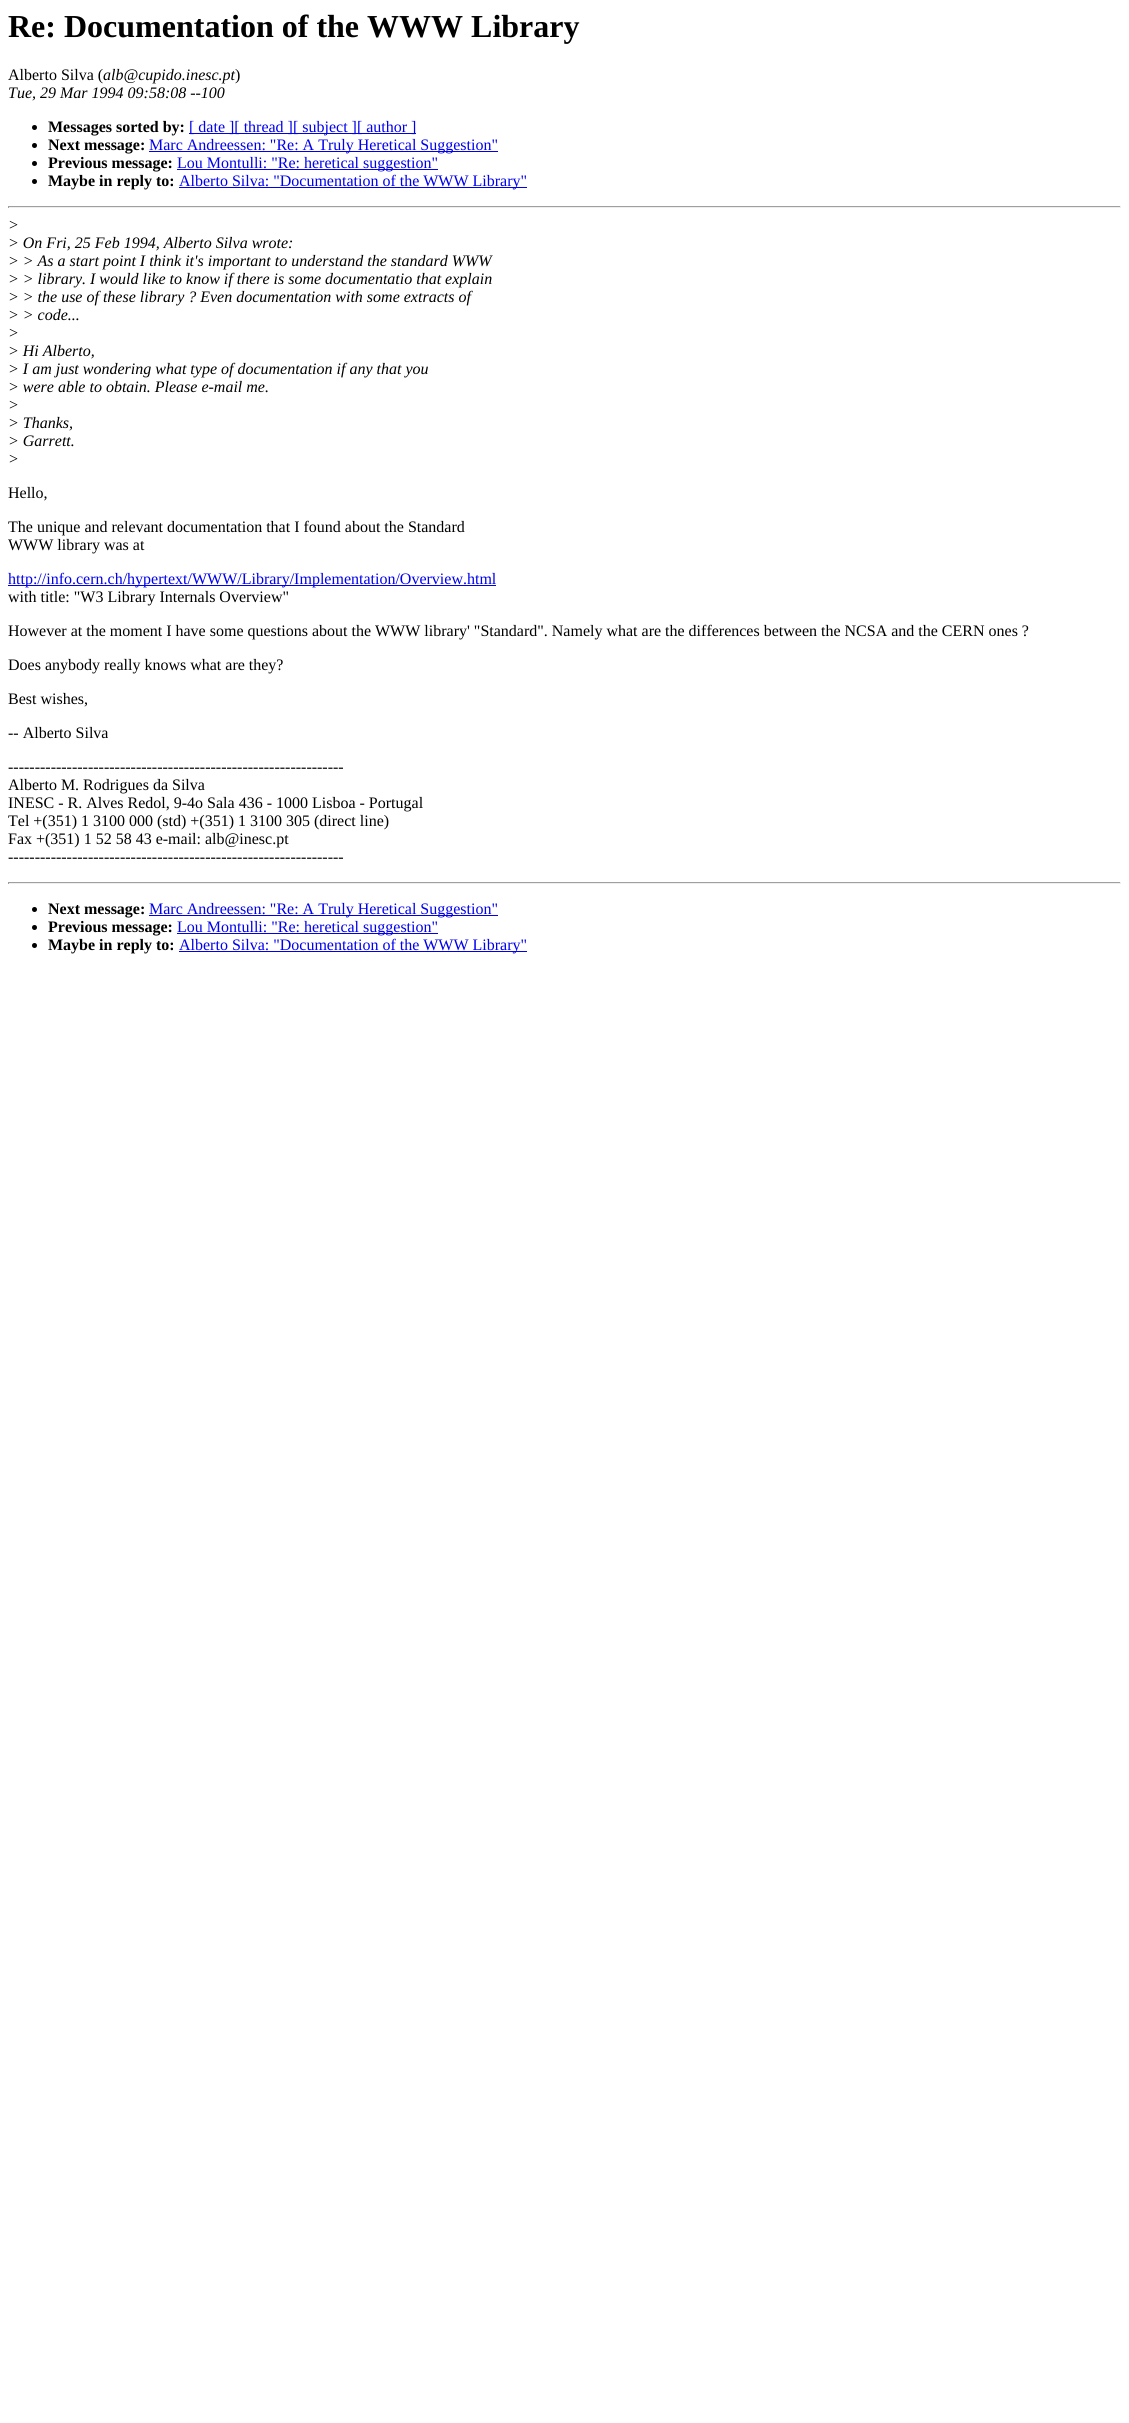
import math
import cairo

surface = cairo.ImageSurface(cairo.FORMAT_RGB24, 1129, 2423)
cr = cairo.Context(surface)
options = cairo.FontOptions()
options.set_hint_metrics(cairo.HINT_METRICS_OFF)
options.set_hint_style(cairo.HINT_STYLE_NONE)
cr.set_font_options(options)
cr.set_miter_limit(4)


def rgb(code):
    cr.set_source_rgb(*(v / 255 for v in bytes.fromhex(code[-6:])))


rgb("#ffffff")
cr.paint()
rgb("#000000")
cr.arc(34.5, 127.5, 2.5, 0, 2 * math.pi)
cr.fill()
rgb("#0000ee")
cr.rectangle(189, 133, 227, 1)
cr.fill()
rgb("#000000")
cr.arc(34.5, 145.5, 2.5, 0, 2 * math.pi)
cr.fill()
rgb("#0000ee")
cr.rectangle(149, 151, 349, 1)
cr.fill()
rgb("#000000")
cr.arc(34.5, 163.5, 2.5, 0, 2 * math.pi)
cr.fill()
rgb("#0000ee")
cr.rectangle(177, 169, 261, 1)
cr.fill()
rgb("#000000")
cr.arc(34.5, 181.5, 2.5, 0, 2 * math.pi)
cr.fill()
for x, y, w, h, color in [
    (179, 187, 348, 1, "#0000ee"),
    (8, 206, 1113, 1, "#9f9f9f"),
    (1120, 206, 1, 2, "#eeeeee"),
    (8, 207, 1113, 1, "#eeeeee"),
    (8, 206, 1, 2, "#9f9f9f"),
    (8, 585, 488, 1, "#0000ee"),
    (8, 882, 1113, 1, "#9f9f9f"),
    (1120, 882, 1, 2, "#eeeeee"),
    (8, 883, 1113, 1, "#eeeeee"),
    (8, 882, 1, 2, "#9f9f9f"),
]:
    rgb(color)
    cr.rectangle(x, y, w, h)
    cr.fill()
rgb("#000000")
cr.arc(34.5, 909.5, 2.5, 0, 2 * math.pi)
cr.fill()
rgb("#0000ee")
cr.rectangle(149, 915, 349, 1)
cr.fill()
rgb("#000000")
cr.arc(34.5, 927.5, 2.5, 0, 2 * math.pi)
cr.fill()
rgb("#0000ee")
cr.rectangle(177, 933, 261, 1)
cr.fill()
rgb("#000000")
cr.arc(34.5, 945.5, 2.5, 0, 2 * math.pi)
cr.fill()
rgb("#0000ee")
cr.rectangle(179, 951, 348, 1)
cr.fill()
cr.select_font_face("Liberation Serif", cairo.FONT_SLANT_NORMAL, cairo.FONT_WEIGHT_BOLD)
cr.set_font_size(32)
rgb("#000000")
cr.move_to(8, 37)
cr.show_text("Re: Documentation of the WWW Library")
cr.select_font_face("Liberation Serif")
cr.set_font_size(16)
cr.move_to(8, 80)
cr.show_text("Alberto Silva (")
cr.select_font_face("Liberation Serif", cairo.FONT_SLANT_ITALIC)
cr.move_to(103, 80)
cr.show_text("alb@cupido.inesc.pt")
cr.select_font_face("Liberation Serif")
cr.move_to(235, 80)
cr.show_text(")")
cr.select_font_face("Liberation Serif", cairo.FONT_SLANT_ITALIC)
cr.move_to(8, 98)
cr.show_text("Tue, 29 Mar 1994 09:58:08 --100")
cr.select_font_face("Liberation Serif", cairo.FONT_SLANT_NORMAL, cairo.FONT_WEIGHT_BOLD)
cr.move_to(48, 132)
cr.show_text("Messages sorted by:")
cr.select_font_face("Liberation Serif")
rgb("#0000ee")
cr.move_to(189, 132)
cr.show_text("[ date ][ thread ][ subject ][ author ]")
cr.select_font_face("Liberation Serif", cairo.FONT_SLANT_NORMAL, cairo.FONT_WEIGHT_BOLD)
rgb("#000000")
cr.move_to(48, 150)
cr.show_text("Next message:")
cr.select_font_face("Liberation Serif")
rgb("#0000ee")
cr.move_to(149, 150)
cr.show_text("Marc Andreessen: \"Re: A Truly Heretical Suggestion\"")
cr.select_font_face("Liberation Serif", cairo.FONT_SLANT_NORMAL, cairo.FONT_WEIGHT_BOLD)
rgb("#000000")
cr.move_to(48, 168)
cr.show_text("Previous message:")
cr.select_font_face("Liberation Serif")
rgb("#0000ee")
cr.move_to(177, 168)
cr.show_text("Lou Montulli: \"Re: heretical suggestion\"")
cr.select_font_face("Liberation Serif", cairo.FONT_SLANT_NORMAL, cairo.FONT_WEIGHT_BOLD)
rgb("#000000")
cr.move_to(48, 186)
cr.show_text("Maybe in reply to:")
cr.select_font_face("Liberation Serif")
rgb("#0000ee")
cr.move_to(179, 186)
cr.show_text("Alberto Silva: \"Documentation of the WWW Library\"")
cr.select_font_face("Liberation Serif", cairo.FONT_SLANT_ITALIC)
rgb("#000000")
for x, y, s in [
    (8, 230, ">"),
    (8, 248, "> On Fri, 25 Feb 1994, Alberto Silva wrote:"),
    (8, 266, "> > As a start point I think it's important to understand the standard WWW"),
    (8, 284, "> > library. I would like to know if there is some documentatio that explain"),
    (8, 302, "> > the use of these library ? Even documentation with some extracts of"),
    (8, 320, "> > code..."),
    (8, 338, ">"),
    (8, 356, "> Hi Alberto,"),
    (8, 374, "> I am just wondering what type of documentation if any that you"),
    (8, 392, "> were able to obtain. Please e-mail me."),
    (8, 410, ">"),
    (8, 428, "> Thanks,"),
    (8, 446, "> Garrett."),
    (8, 464, ">"),
]:
    cr.move_to(x, y)
    cr.show_text(s)
cr.select_font_face("Liberation Serif")
for x, y, s in [
    (8, 498, "Hello,"),
    (8, 532, "The unique and relevant documentation that I found about the Standard"),
    (8, 550, "WWW library was at"),
]:
    cr.move_to(x, y)
    cr.show_text(s)
rgb("#0000ee")
cr.move_to(8, 584)
cr.show_text("http://info.cern.ch/hypertext/WWW/Library/Implementation/Overview.html")
rgb("#000000")
for x, y, s in [
    (8, 602, "with title: \"W3 Library Internals Overview\""),
    (8, 636, "However at the moment I have some questions about the WWW library' \"Standard\". Namely what are the differences between the NCSA and the CERN ones ?"),
    (8, 670, "Does anybody really knows what are they?"),
    (8, 704, "Best wishes,"),
    (8, 738, "-- Alberto Silva"),
    (8, 772, "---------------------------------------------------------------"),
    (8, 790, "Alberto M. Rodrigues da Silva"),
    (8, 808, "INESC - R. Alves Redol, 9-4o Sala 436 - 1000 Lisboa - Portugal"),
    (8, 826, "Tel +(351) 1 3100 000 (std) +(351) 1 3100 305 (direct line)"),
    (8, 844, "Fax +(351) 1 52 58 43 e-mail: alb@inesc.pt"),
    (8, 862, "---------------------------------------------------------------"),
]:
    cr.move_to(x, y)
    cr.show_text(s)
cr.select_font_face("Liberation Serif", cairo.FONT_SLANT_NORMAL, cairo.FONT_WEIGHT_BOLD)
cr.move_to(48, 914)
cr.show_text("Next message:")
cr.select_font_face("Liberation Serif")
rgb("#0000ee")
cr.move_to(149, 914)
cr.show_text("Marc Andreessen: \"Re: A Truly Heretical Suggestion\"")
cr.select_font_face("Liberation Serif", cairo.FONT_SLANT_NORMAL, cairo.FONT_WEIGHT_BOLD)
rgb("#000000")
cr.move_to(48, 932)
cr.show_text("Previous message:")
cr.select_font_face("Liberation Serif")
rgb("#0000ee")
cr.move_to(177, 932)
cr.show_text("Lou Montulli: \"Re: heretical suggestion\"")
cr.select_font_face("Liberation Serif", cairo.FONT_SLANT_NORMAL, cairo.FONT_WEIGHT_BOLD)
rgb("#000000")
cr.move_to(48, 950)
cr.show_text("Maybe in reply to:")
cr.select_font_face("Liberation Serif")
rgb("#0000ee")
cr.move_to(179, 950)
cr.show_text("Alberto Silva: \"Documentation of the WWW Library\"")
surface.write_to_png("page.png")
